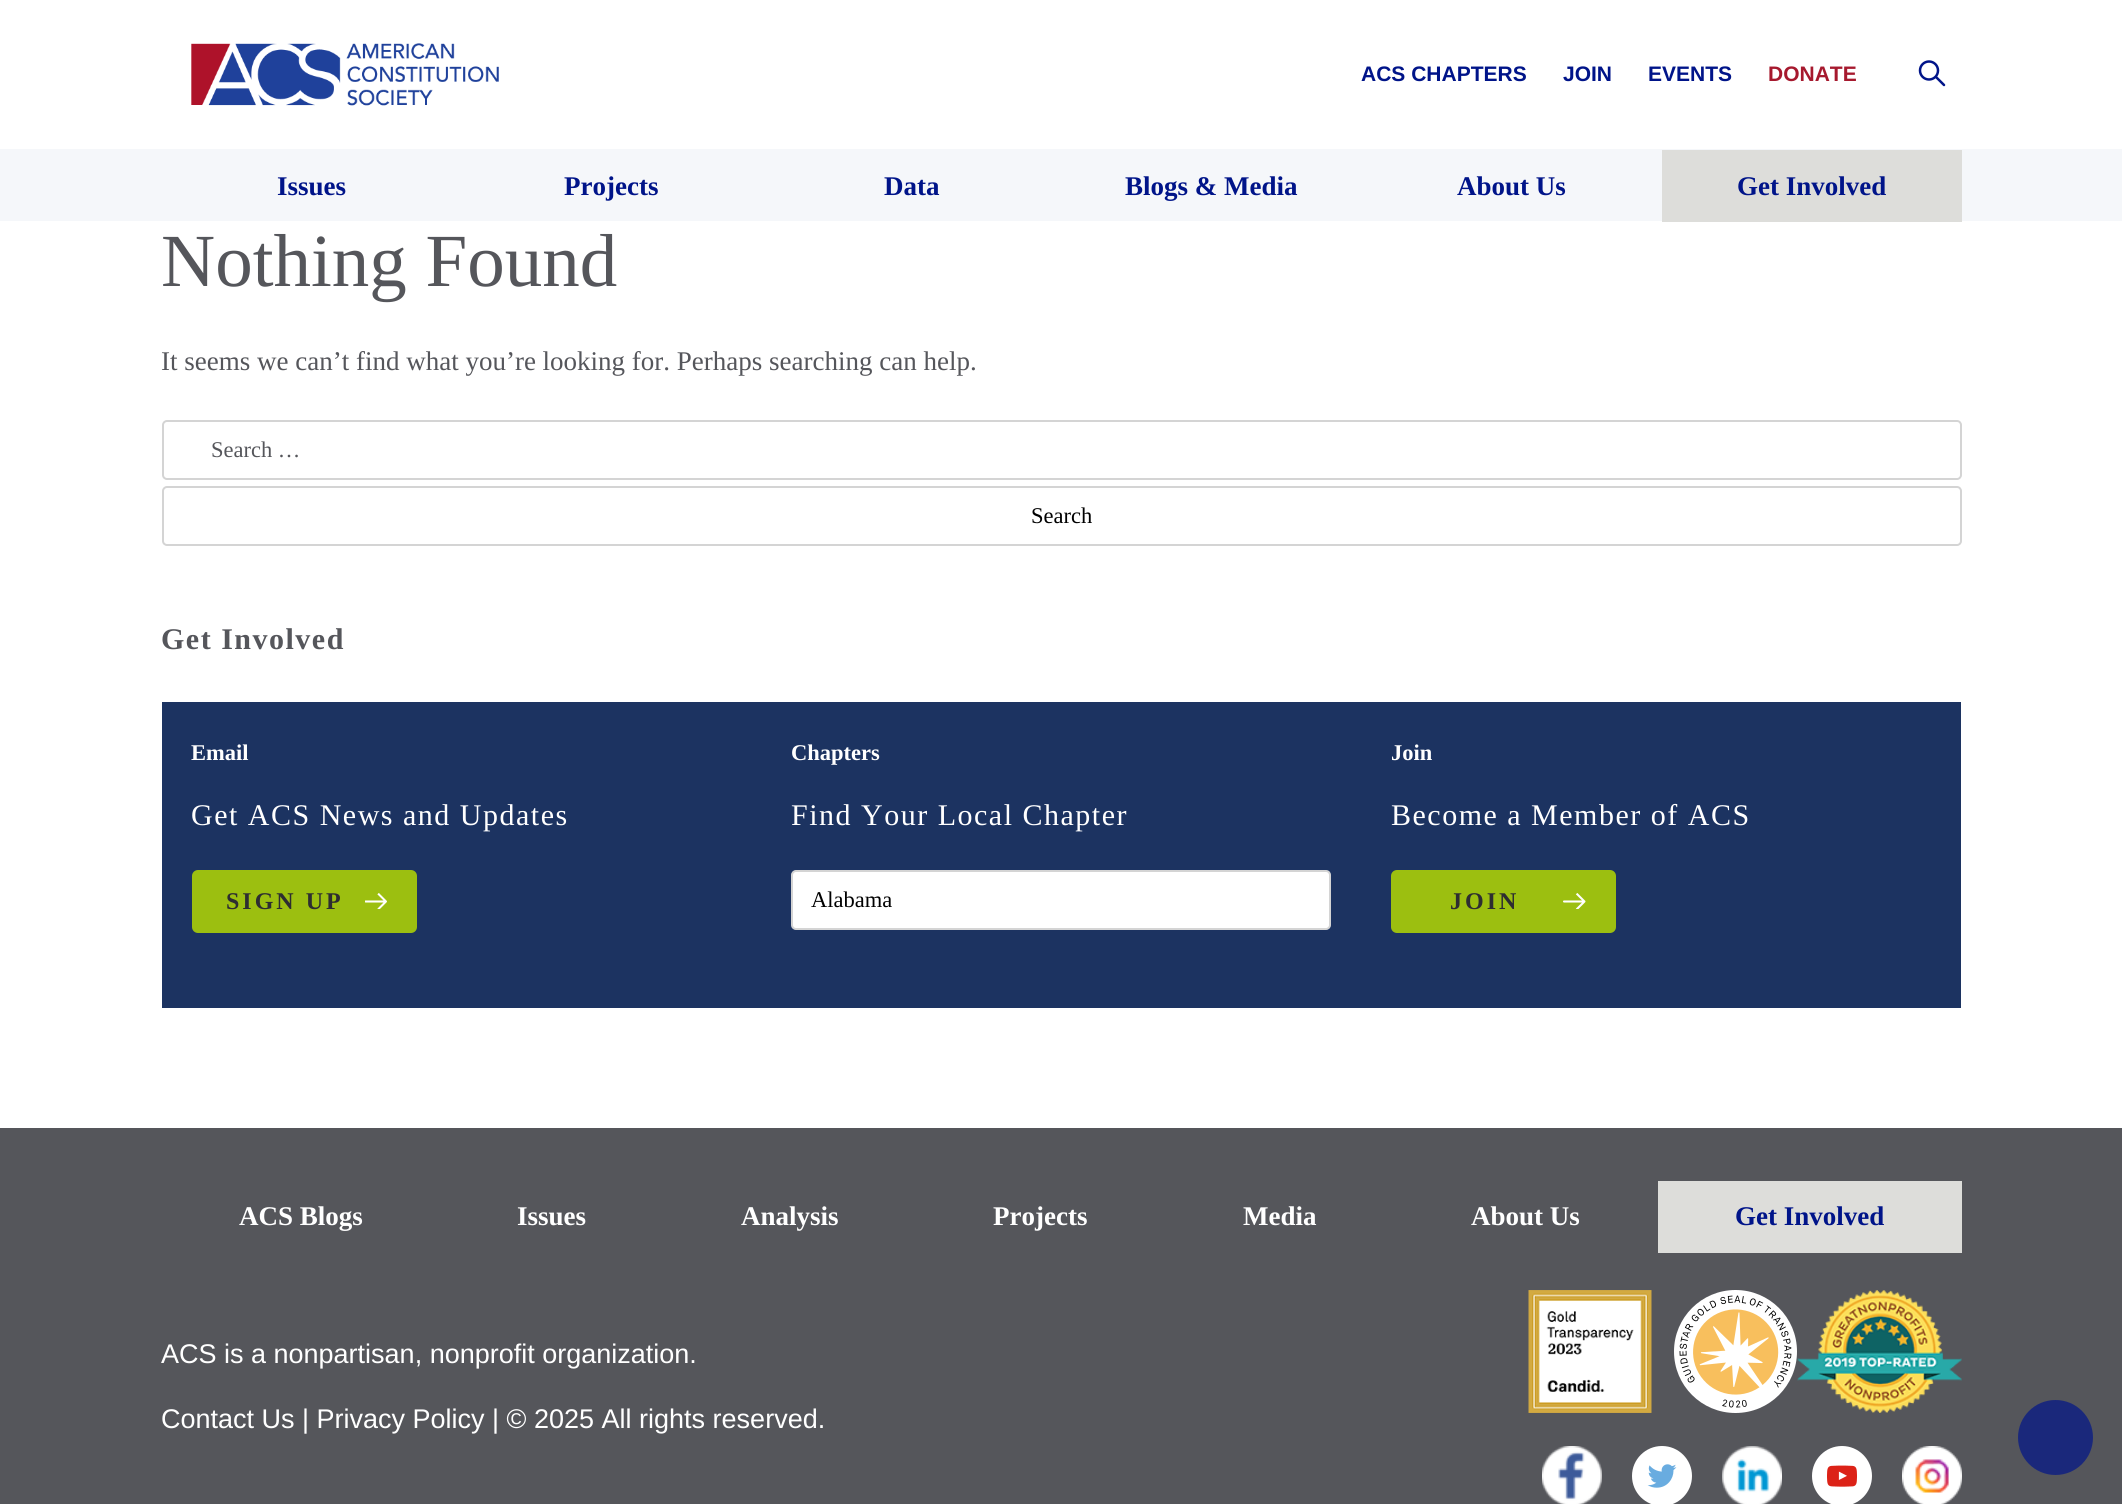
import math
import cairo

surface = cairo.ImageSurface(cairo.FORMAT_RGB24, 2122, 1504)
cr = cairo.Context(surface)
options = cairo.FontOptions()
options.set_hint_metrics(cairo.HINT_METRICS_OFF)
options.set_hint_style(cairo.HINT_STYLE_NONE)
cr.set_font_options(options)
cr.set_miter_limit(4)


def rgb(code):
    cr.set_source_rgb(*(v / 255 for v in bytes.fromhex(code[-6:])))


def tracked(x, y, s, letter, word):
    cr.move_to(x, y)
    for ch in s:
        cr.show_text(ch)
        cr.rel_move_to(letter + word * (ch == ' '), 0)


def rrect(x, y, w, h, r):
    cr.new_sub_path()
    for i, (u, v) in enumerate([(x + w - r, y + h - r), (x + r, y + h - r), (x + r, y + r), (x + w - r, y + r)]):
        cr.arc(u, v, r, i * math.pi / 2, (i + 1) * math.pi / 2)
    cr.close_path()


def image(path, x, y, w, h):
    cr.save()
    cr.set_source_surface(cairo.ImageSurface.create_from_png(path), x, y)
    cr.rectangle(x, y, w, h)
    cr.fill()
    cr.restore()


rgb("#ffffff")
cr.paint()
image("img/1.png", 191, 43, 308, 63)
cr.arc(1929, 70.5, 9, 0, 2 * math.pi)
rgb("#001489")
cr.set_line_width(2.5)
cr.stroke()
cr.new_path()
cr.move_to(1936.5, 77.5)
cr.line_to(1944, 85)
cr.set_line_cap(cairo.LINE_CAP_ROUND)
cr.stroke()
rgb("#f5f7fa")
cr.rectangle(0, 149, 2122, 72)
cr.fill()
rgb("#ddddda")
cr.rectangle(1662, 150, 300, 72)
cr.fill()
rrect(163, 421, 1798, 58, 4)
rgb("#d4d4d4")
cr.set_line_width(2)
cr.set_line_cap(cairo.LINE_CAP_BUTT)
cr.stroke()
rrect(163, 487, 1798, 58, 4)
cr.stroke()
rgb("#1c3361")
cr.rectangle(162, 702, 1799, 306)
cr.fill()
rgb("#9cbf10")
rrect(192, 870, 225, 63, 6)
cr.fill()
image("img/2.png", 365, 893, 22, 16)
rgb("#ffffff")
rrect(792, 871, 538, 58, 4)
cr.fill_preserve()
rgb("#d4d4d4")
cr.stroke()
rgb("#9cbf10")
rrect(1391, 870, 225, 63, 6)
cr.fill()
image("img/3.png", 1563, 893, 23, 16)
rgb("#55565b")
cr.rectangle(0, 1128, 2122, 376)
cr.fill()
rgb("#ddddda")
cr.rectangle(1658, 1181, 304, 72)
cr.fill()
image("img/4.png", 1528, 1290, 124, 123)
image("img/5.png", 1674, 1290, 123, 123)
image("img/6.png", 1797, 1290, 165, 123)
image("img/7.png", 1542, 1446, 60, 58)
image("img/8.png", 1632, 1446, 60, 58)
image("img/9.png", 1722, 1446, 60, 58)
image("img/10.png", 1812, 1446, 60, 58)
image("img/11.png", 1902, 1446, 60, 58)
rgb("#1a287b")
cr.arc(2055.5, 1437.5, 37.5, 0, 2 * math.pi)
cr.fill()
cr.select_font_face("Liberation Sans", cairo.FONT_SLANT_NORMAL, cairo.FONT_WEIGHT_BOLD)
cr.set_font_size(21)
rgb("#001489")
for x, y, s in [
    (1361, 81, "ACS CHAPTERS"),
    (1563, 81, "JOIN"),
    (1648, 81, "EVENTS"),
]:
    cr.move_to(x, y)
    cr.show_text(s)
rgb("#a6192e")
cr.move_to(1768, 81)
cr.show_text("DONATE")
cr.select_font_face("Liberation Serif", cairo.FONT_SLANT_NORMAL, cairo.FONT_WEIGHT_BOLD)
cr.set_font_size(27)
rgb("#001489")
for x, y, s in [
    (277, 195, "Issues"),
    (564, 195, "Projects"),
    (884, 195, "Data"),
    (1125, 195, "Blogs & Media"),
    (1457, 195, "About Us"),
    (1737, 195, "Get Involved"),
]:
    cr.move_to(x, y)
    cr.show_text(s)
cr.select_font_face("Liberation Serif")
cr.set_font_size(75)
rgb("#55565b")
cr.move_to(161, 286)
cr.show_text("Nothing Found")
cr.set_font_size(27)
cr.move_to(161, 370)
cr.show_text("It seems we can’t find what you’re looking for. Perhaps searching can help.")
cr.set_font_size(22.5)
cr.move_to(211, 457)
cr.show_text("Search …")
rgb("#000000")
cr.move_to(1031, 523)
cr.show_text("Search")
cr.select_font_face("Liberation Serif", cairo.FONT_SLANT_NORMAL, cairo.FONT_WEIGHT_BOLD)
cr.set_font_size(30)
rgb("#55565b")
tracked(161, 649, "Get Involved", 1.5, 0)
cr.set_font_size(22.5)
rgb("#ffffff")
cr.move_to(191, 760)
cr.show_text("Email")
cr.select_font_face("Liberation Serif")
cr.set_font_size(30)
tracked(191, 825, "Get ACS News and Updates", 1.5, 0)
cr.select_font_face("Liberation Serif", cairo.FONT_SLANT_NORMAL, cairo.FONT_WEIGHT_BOLD)
cr.set_font_size(24)
rgb("#2d2d31")
tracked(226, 909, "SIGN UP", 3, 0)
cr.set_font_size(22.5)
rgb("#ffffff")
cr.move_to(791, 760)
cr.show_text("Chapters")
cr.select_font_face("Liberation Serif")
cr.set_font_size(30)
tracked(791, 825, "Find Your Local Chapter", 1.5, 0)
cr.set_font_size(22.5)
rgb("#000000")
cr.move_to(811, 907)
cr.show_text("Alabama")
cr.select_font_face("Liberation Serif", cairo.FONT_SLANT_NORMAL, cairo.FONT_WEIGHT_BOLD)
rgb("#ffffff")
cr.move_to(1391, 760)
cr.show_text("Join")
cr.select_font_face("Liberation Serif")
cr.set_font_size(30)
tracked(1391, 825, "Become a Member of ACS", 1.5, 0)
cr.select_font_face("Liberation Serif", cairo.FONT_SLANT_NORMAL, cairo.FONT_WEIGHT_BOLD)
cr.set_font_size(24)
rgb("#2d2d31")
tracked(1450, 909, "JOIN", 3, 0)
cr.set_font_size(27)
rgb("#ffffff")
for x, y, s in [
    (239, 1225, "ACS Blogs"),
    (517, 1225, "Issues"),
    (741, 1225, "Analysis"),
    (993, 1225, "Projects"),
    (1243, 1225, "Media"),
    (1471, 1225, "About Us"),
]:
    cr.move_to(x, y)
    cr.show_text(s)
rgb("#001489")
cr.move_to(1735, 1225)
cr.show_text("Get Involved")
cr.select_font_face("Liberation Sans")
rgb("#ffffff")
cr.move_to(161, 1363)
cr.show_text("ACS is a nonpartisan, nonprofit organization.")
cr.move_to(161, 1428)
cr.show_text("Contact Us | Privacy Policy | © 2025 All rights reserved.")
surface.write_to_png("page.png")
